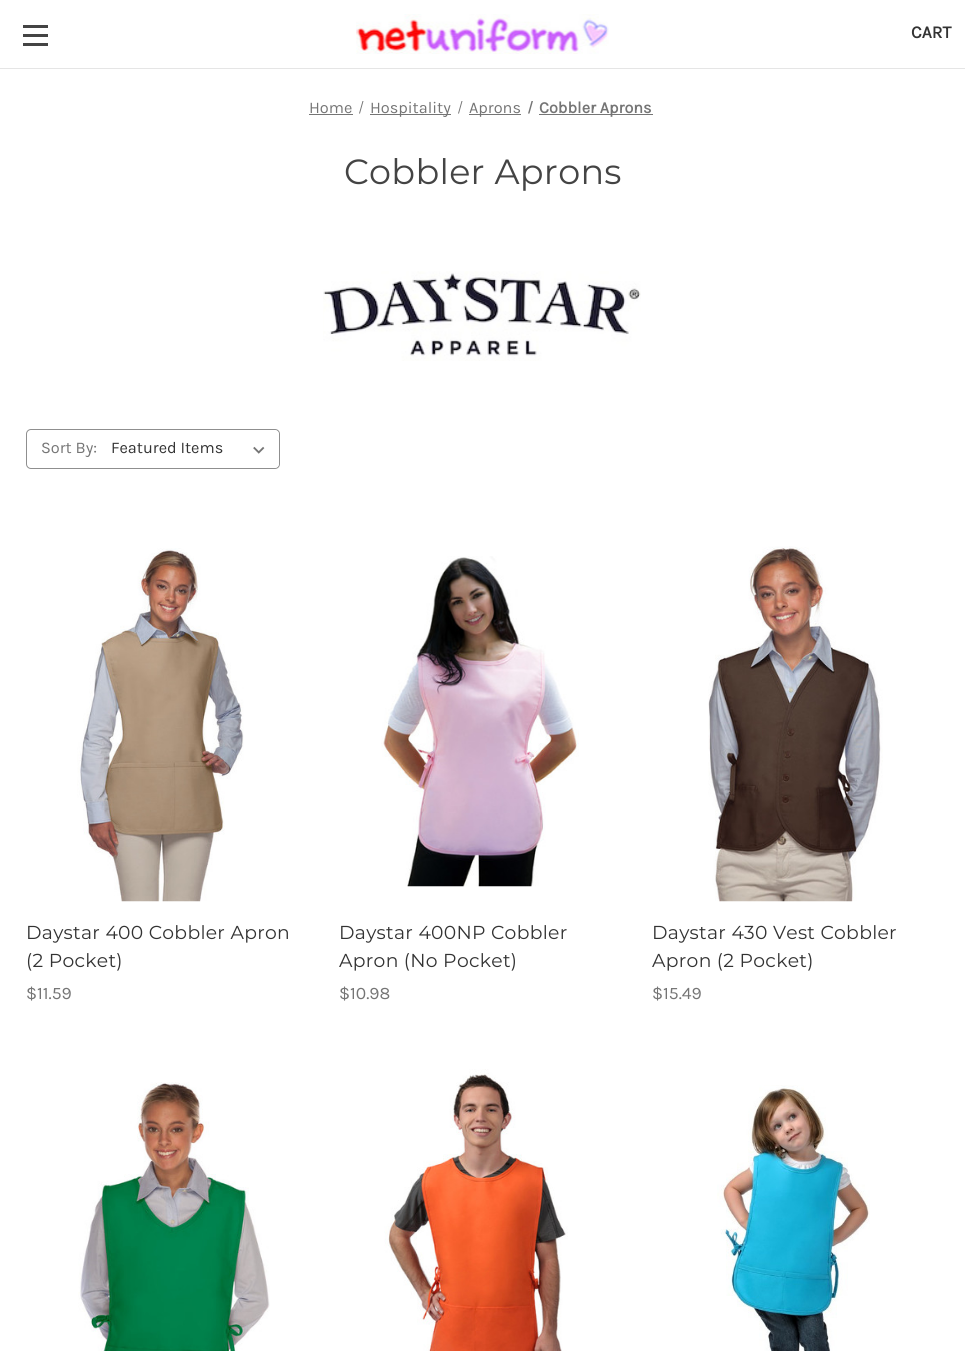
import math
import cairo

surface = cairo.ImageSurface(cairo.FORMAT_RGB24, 965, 1351)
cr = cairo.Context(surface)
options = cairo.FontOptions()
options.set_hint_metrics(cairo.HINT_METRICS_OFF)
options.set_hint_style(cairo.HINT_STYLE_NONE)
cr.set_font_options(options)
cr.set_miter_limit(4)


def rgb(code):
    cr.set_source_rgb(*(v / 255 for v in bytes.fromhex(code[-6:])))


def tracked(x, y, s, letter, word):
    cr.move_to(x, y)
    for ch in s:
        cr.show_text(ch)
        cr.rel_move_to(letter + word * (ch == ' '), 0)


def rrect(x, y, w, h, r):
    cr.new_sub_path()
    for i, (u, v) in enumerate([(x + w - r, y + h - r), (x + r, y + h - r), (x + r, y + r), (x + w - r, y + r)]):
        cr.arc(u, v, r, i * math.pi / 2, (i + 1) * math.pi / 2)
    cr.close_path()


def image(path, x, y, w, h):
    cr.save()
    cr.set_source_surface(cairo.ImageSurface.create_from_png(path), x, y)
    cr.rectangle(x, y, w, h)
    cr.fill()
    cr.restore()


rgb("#ffffff")
cr.paint()
for x, y, w, h, color in [
    (0, 68, 965, 1, "#e5e5e5"),
    (23, 34, 25, 3, "#444444"),
    (23, 25, 25, 3, "#444444"),
    (23, 43, 25, 3, "#444444"),
]:
    rgb(color)
    cr.rectangle(x, y, w, h)
    cr.fill()
image("img/1.png", 356, 14, 253, 40)
rgb("#757575")
cr.rectangle(309, 114, 44, 1)
cr.fill()
cr.new_path()
cr.move_to(362.5, 101)
cr.line_to(363.5, 101)
cr.line_to(360, 113.5)
cr.line_to(359, 113.5)
cr.close_path()
cr.fill()
cr.rectangle(370, 114, 81, 1)
cr.fill()
cr.new_path()
cr.move_to(461.5, 101)
cr.line_to(462.5, 101)
cr.line_to(459, 113.5)
cr.line_to(458, 113.5)
cr.close_path()
cr.fill()
cr.rectangle(469, 114, 52, 1)
cr.fill()
cr.new_path()
cr.move_to(531.5, 101)
cr.line_to(533, 101)
cr.line_to(529.5, 113.5)
cr.line_to(528, 113.5)
cr.close_path()
cr.fill()
cr.rectangle(539, 114, 114, 1)
cr.fill()
image("img/2.png", 323, 271, 318, 90)
rrect(26.5, 429.5, 253, 39, 4.5)
rgb("#8f8f8f")
cr.set_line_width(1)
cr.stroke()
rgb("#ffffff")
rrect(108, 430, 171, 38, 5)
cr.fill()
image("img/3.png", 253, 446, 12, 8)
image("img/4.png", 77, 548, 167, 354)
image("img/5.png", 381, 556, 198, 331)
image("img/6.png", 708, 546, 175, 356)
image("img/7.png", 78, 1082, 192, 269)
image("img/8.png", 384, 1069, 184, 282)
image("img/9.png", 717, 1085, 153, 266)
cr.select_font_face("Karla", cairo.FONT_SLANT_NORMAL, cairo.FONT_WEIGHT_BOLD)
cr.set_font_size(17.5)
rgb("#333333")
cr.move_to(911, 38)
cr.show_text("CART")
cr.select_font_face("Karla")
cr.set_font_size(16.25)
rgb("#757575")
for x, y, s in [
    (309, 113, "Home"),
    (370, 113, "Hospitality"),
    (469, 113, "Aprons"),
]:
    cr.move_to(x, y)
    cr.show_text(s)
cr.select_font_face("Karla", cairo.FONT_SLANT_NORMAL, cairo.FONT_WEIGHT_BOLD)
cr.move_to(539, 113)
cr.show_text("Cobbler Aprons")
cr.select_font_face("Montserrat")
cr.set_font_size(35)
rgb("#444444")
tracked(344, 184, "Cobbler Aprons", 0.3, 0)
cr.select_font_face("Karla")
cr.set_font_size(16.25)
rgb("#757575")
cr.move_to(41, 453)
cr.show_text("Sort By:")
rgb("#333333")
cr.move_to(111, 453)
cr.show_text("Featured Items")
cr.select_font_face("Montserrat")
cr.set_font_size(18.75)
tracked(26, 939, "Daystar 400 Cobbler Apron", 0.3, 0)
tracked(26, 967, "(2 Pocket)", 0.3, 0)
cr.select_font_face("Karla")
cr.set_font_size(17.5)
rgb("#757575")
cr.move_to(26, 999)
cr.show_text("$11.59")
cr.select_font_face("Montserrat")
cr.set_font_size(18.75)
rgb("#333333")
tracked(339, 939, "Daystar 400NP Cobbler", 0.3, 0)
tracked(339, 967, "Apron (No Pocket)", 0.3, 0)
cr.select_font_face("Karla")
cr.set_font_size(17.5)
rgb("#757575")
cr.move_to(339, 999)
cr.show_text("$10.98")
cr.select_font_face("Montserrat")
cr.set_font_size(18.75)
rgb("#333333")
tracked(652, 939, "Daystar 430 Vest Cobbler", 0.3, 0)
tracked(652, 967, "Apron (2 Pocket)", 0.3, 0)
cr.select_font_face("Karla")
cr.set_font_size(17.5)
rgb("#757575")
cr.move_to(652, 999)
cr.show_text("$15.49")
surface.write_to_png("page.png")
